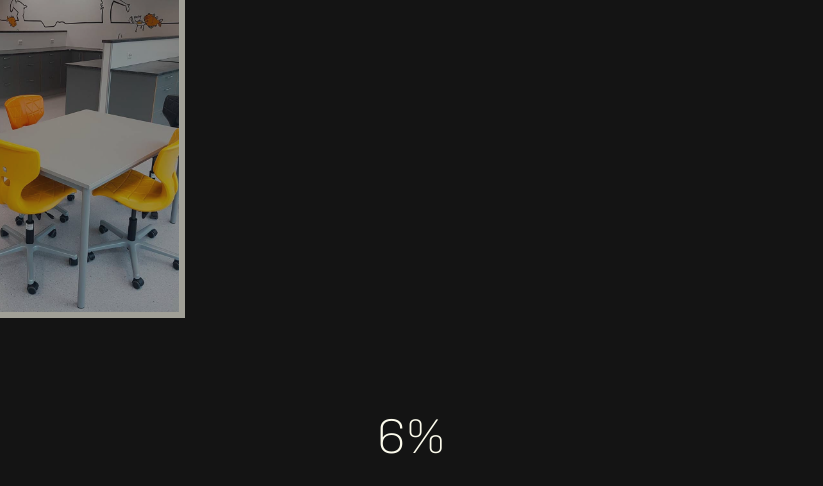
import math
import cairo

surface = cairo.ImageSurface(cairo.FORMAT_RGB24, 823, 486)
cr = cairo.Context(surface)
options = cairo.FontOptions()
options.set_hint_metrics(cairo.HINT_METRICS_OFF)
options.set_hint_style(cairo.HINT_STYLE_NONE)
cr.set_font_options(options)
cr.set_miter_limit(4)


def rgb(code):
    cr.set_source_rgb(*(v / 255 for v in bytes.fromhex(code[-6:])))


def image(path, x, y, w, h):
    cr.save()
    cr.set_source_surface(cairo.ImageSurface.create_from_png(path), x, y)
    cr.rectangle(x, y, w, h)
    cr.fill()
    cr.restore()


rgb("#141414")
cr.paint()
cr.rectangle(-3, -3, 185, 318)
rgb("#a1a097")
cr.set_line_width(6)
cr.stroke()
image("img/1.png", 0, 0, 179, 312)
cr.select_font_face("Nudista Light")
cr.set_font_size(48)
rgb("#fcfbec")
cr.move_to(377, 453)
cr.show_text("6%")
surface.write_to_png("page.png")
